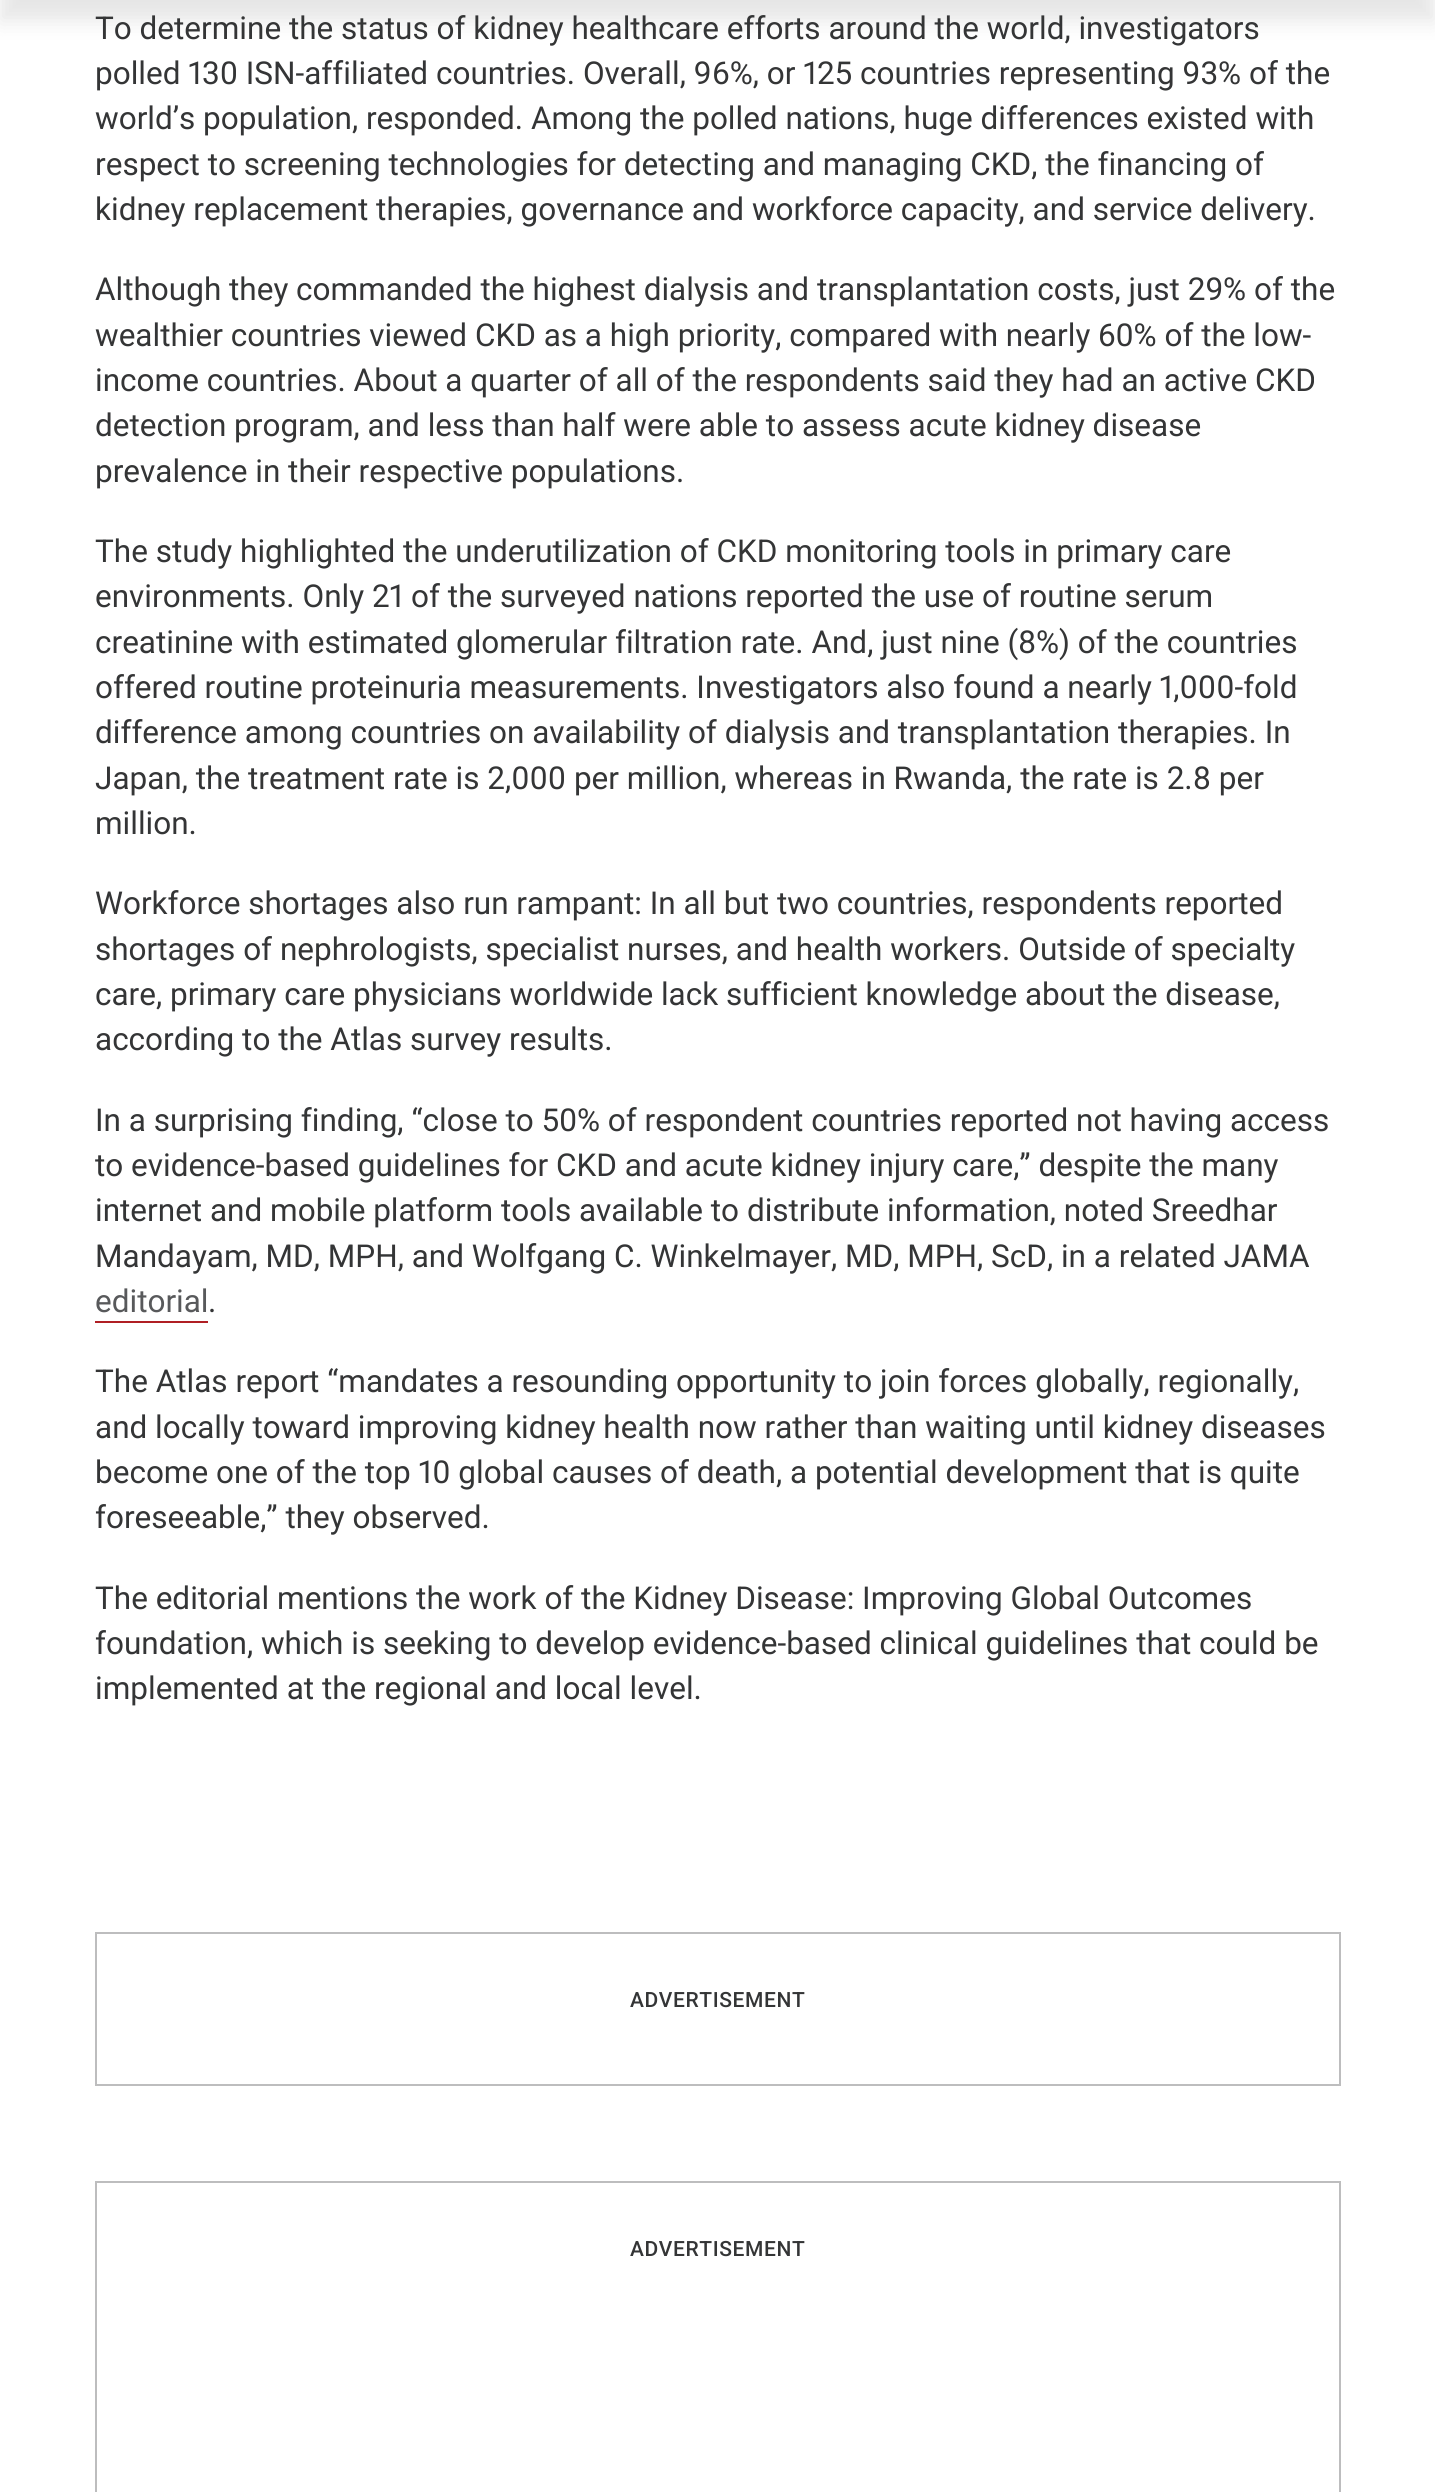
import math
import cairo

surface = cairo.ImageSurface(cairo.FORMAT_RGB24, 1435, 2492)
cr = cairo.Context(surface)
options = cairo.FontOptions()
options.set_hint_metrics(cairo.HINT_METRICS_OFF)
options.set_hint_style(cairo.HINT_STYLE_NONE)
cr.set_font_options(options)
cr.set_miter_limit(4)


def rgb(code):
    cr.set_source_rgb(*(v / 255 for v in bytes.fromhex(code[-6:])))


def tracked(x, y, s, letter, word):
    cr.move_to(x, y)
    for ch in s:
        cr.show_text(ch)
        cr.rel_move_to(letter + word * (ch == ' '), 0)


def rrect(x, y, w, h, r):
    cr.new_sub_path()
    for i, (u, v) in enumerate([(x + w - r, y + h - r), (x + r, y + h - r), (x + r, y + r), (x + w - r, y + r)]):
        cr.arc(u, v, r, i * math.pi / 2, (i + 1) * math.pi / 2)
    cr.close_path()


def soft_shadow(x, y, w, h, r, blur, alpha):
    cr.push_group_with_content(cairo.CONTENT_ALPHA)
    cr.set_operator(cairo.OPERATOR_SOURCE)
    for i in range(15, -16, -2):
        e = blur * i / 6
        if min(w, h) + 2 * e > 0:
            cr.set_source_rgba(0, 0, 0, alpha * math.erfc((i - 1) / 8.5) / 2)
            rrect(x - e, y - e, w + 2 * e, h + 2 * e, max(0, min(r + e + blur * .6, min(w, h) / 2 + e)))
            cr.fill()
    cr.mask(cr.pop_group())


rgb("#ffffff")
cr.paint()
rgb("#000000")
soft_shadow(0, -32, 1435, 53, 0, 10.5, 0.1)
rgb("#b01f24")
cr.rectangle(95, 1321, 113, 2)
cr.fill()
cr.rectangle(96, 1933, 1244, 152)
rgb("#bdbdbe")
cr.stroke()
cr.rectangle(96, 2182, 1244, 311)
cr.stroke()
cr.select_font_face("Roboto")
cr.set_font_size(31.5)
rgb("#343536")
cr.move_to(95, 39)
cr.show_text("To determine the status of kidney healthcare efforts around the world, investigators")
cr.select_font_face("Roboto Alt")
cr.move_to(95, 84)
cr.show_text("polled 130 ISN-affiliated countries. Overall, 96%, or 125 countries representing 93% of the")
cr.select_font_face("Roboto")
for x, y, s in [
    (95, 129, "world’s population, responded. Among the polled nations, huge differences existed with"),
    (95, 175, "respect to screening technologies for detecting and managing CKD, the financing of"),
    (95, 220, "kidney replacement therapies, governance and workforce capacity, and service delivery."),
    (95, 300, "Although they commanded the highest dialysis and transplantation costs, just 29% of the"),
    (95, 346, "wealthier countries viewed CKD as a high priority, compared with nearly 60% of the low-"),
    (95, 391, "income countries. About a quarter of all of the respondents said they had an active CKD"),
    (95, 436, "detection program, and less than half were able to assess acute kidney disease"),
    (95, 482, "prevalence in their respective populations."),
    (95, 562, "The study highlighted the underutilization of CKD monitoring tools in primary care"),
]:
    cr.move_to(x, y)
    cr.show_text(s)
cr.select_font_face("Roboto Alt")
cr.move_to(95, 607)
cr.show_text("environments. Only 21 of the surveyed nations reported the use of routine serum")
cr.select_font_face("Roboto")
cr.move_to(95, 653)
cr.show_text("creatinine with estimated glomerular filtration rate. And, just nine (8%) of the countries")
cr.select_font_face("Roboto Alt")
cr.move_to(95, 698)
cr.show_text("offered routine proteinuria measurements. Investigators also found a nearly 1,000-fold")
cr.select_font_face("Roboto")
cr.move_to(95, 743)
cr.show_text("difference among countries on availability of dialysis and transplantation therapies. In")
cr.select_font_face("Roboto Alt")
cr.move_to(95, 789)
cr.show_text("Japan, the treatment rate is 2,000 per million, whereas in Rwanda, the rate is 2.8 per")
cr.select_font_face("Roboto")
for x, y, s in [
    (95, 834, "million."),
    (95, 914, "Workforce shortages also run rampant: In all but two countries, respondents reported"),
    (95, 960, "shortages of nephrologists, specialist nurses, and health workers. Outside of specialty"),
    (95, 1005, "care, primary care physicians worldwide lack sufficient knowledge about the disease,"),
    (95, 1050, "according to the Atlas survey results."),
    (95, 1131, "In a surprising finding, “close to 50% of respondent countries reported not having access"),
    (95, 1176, "to evidence-based guidelines for CKD and acute kidney injury care,” despite the many"),
    (95, 1221, "internet and mobile platform tools available to distribute information, noted Sreedhar"),
    (95, 1267, "Mandayam, MD, MPH, and Wolfgang C. Winkelmayer, MD, MPH, ScD, in a related JAMA"),
]:
    cr.move_to(x, y)
    cr.show_text(s)
rgb("#58595b")
cr.move_to(95, 1312)
cr.show_text("editorial")
rgb("#343536")
for x, y, s in [
    (208, 1312, "."),
    (95, 1392, "The Atlas report “mandates a resounding opportunity to join forces globally, regionally,"),
    (95, 1438, "and locally toward improving kidney health now rather than waiting until kidney diseases"),
]:
    cr.move_to(x, y)
    cr.show_text(s)
cr.select_font_face("Roboto Alt")
cr.move_to(95, 1483)
cr.show_text("become one of the top 10 global causes of death, a potential development that is quite")
cr.select_font_face("Roboto")
for x, y, s in [
    (95, 1528, "foreseeable,” they observed."),
    (95, 1609, "The editorial mentions the work of the Kidney Disease: Improving Global Outcomes"),
    (95, 1654, "foundation, which is seeking to develop evidence-based clinical guidelines that could be"),
    (95, 1699, "implemented at the regional and local level."),
]:
    cr.move_to(x, y)
    cr.show_text(s)
cr.select_font_face("Roboto Medium")
cr.set_font_size(21)
tracked(630, 2007, "ADVERTISEMENT", 0.6, 0)
tracked(630, 2256, "ADVERTISEMENT", 0.6, 0)
surface.write_to_png("page.png")
